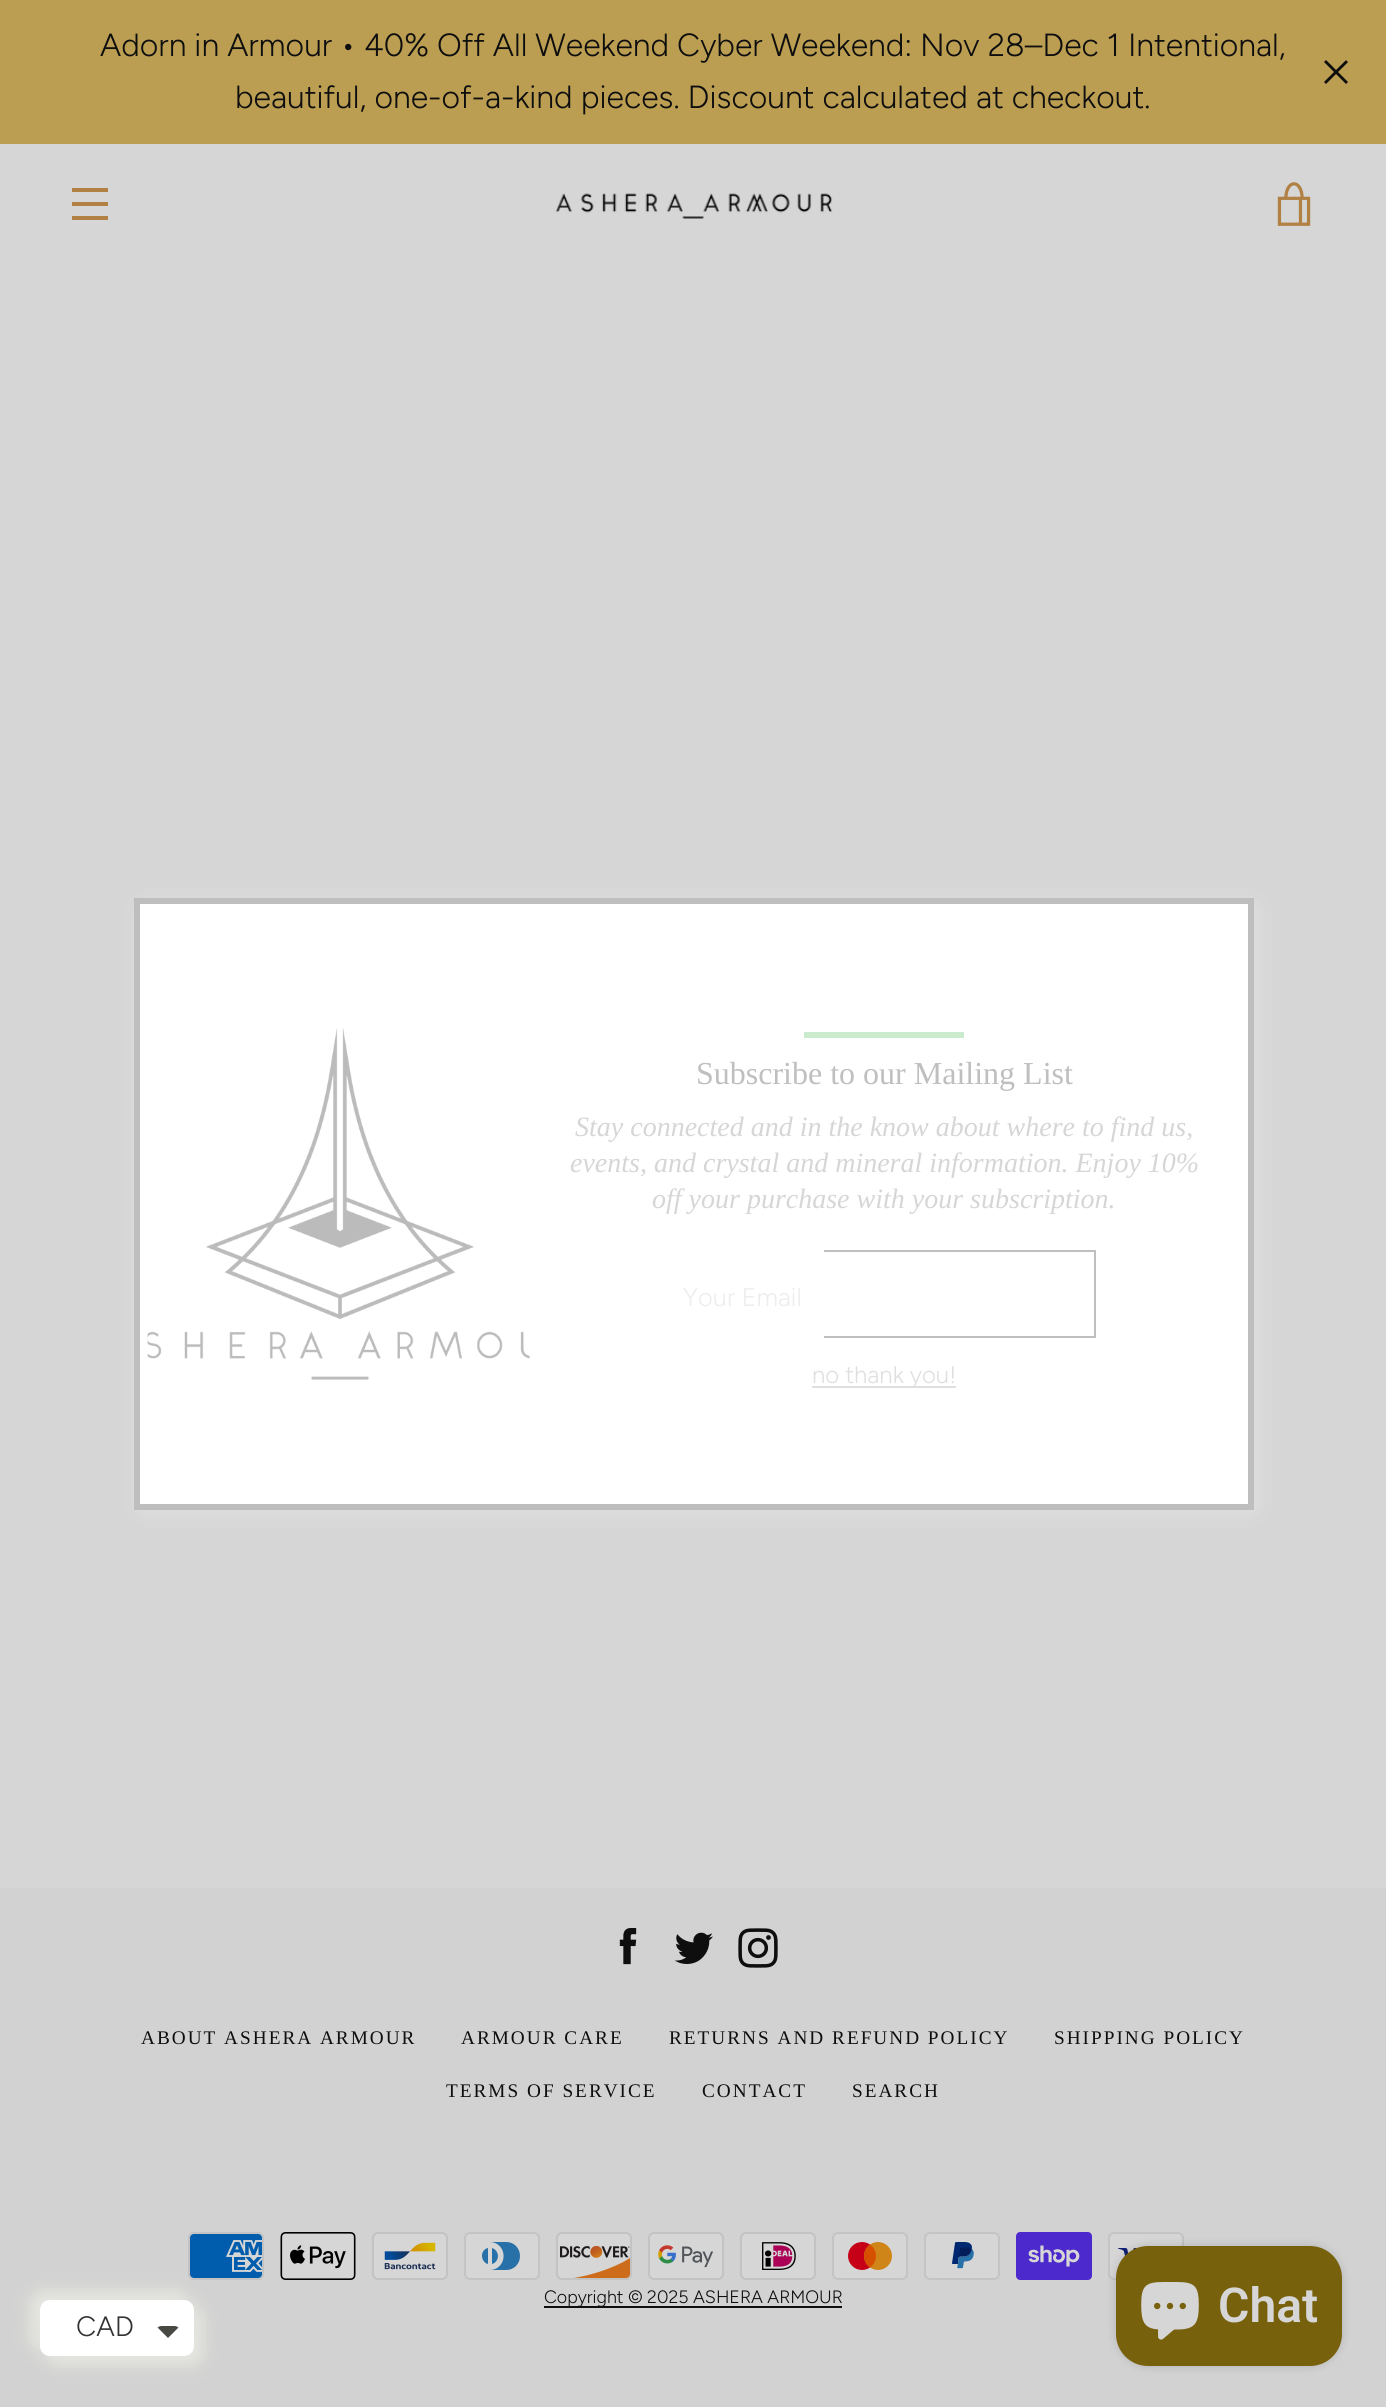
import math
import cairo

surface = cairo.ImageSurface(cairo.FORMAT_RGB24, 1386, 2407)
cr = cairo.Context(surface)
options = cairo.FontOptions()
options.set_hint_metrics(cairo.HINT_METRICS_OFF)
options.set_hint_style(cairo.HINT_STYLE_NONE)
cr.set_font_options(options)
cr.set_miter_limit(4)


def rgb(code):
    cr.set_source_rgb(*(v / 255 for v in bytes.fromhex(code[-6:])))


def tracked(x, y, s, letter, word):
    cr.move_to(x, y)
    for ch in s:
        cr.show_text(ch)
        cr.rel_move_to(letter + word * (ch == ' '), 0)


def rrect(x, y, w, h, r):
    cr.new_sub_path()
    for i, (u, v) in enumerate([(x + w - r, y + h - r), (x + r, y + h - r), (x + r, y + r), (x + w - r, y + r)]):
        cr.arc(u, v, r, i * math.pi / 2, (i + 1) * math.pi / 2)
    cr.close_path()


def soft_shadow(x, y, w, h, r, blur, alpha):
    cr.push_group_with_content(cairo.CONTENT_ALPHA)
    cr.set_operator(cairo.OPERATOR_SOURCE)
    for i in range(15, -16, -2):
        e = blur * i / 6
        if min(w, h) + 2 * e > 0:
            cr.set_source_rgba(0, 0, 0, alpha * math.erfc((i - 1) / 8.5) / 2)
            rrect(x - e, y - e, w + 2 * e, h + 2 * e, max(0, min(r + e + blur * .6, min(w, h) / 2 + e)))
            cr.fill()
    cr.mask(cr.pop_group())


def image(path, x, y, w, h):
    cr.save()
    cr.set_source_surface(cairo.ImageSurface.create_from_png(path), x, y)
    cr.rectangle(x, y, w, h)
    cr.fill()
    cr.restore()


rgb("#d6d6d6")
cr.paint()
rgb("#bb9e52")
cr.rectangle(0, 0, 1386, 144)
cr.fill()
image("img/1.png", 1324, 60, 24, 24)
for x, y, w, h, color in [
    (72, 188, 36, 4, "#b18043"),
    (72, 202, 36, 4, "#b18043"),
    (72, 216, 36, 4, "#b18043"),
]:
    rgb(color)
    cr.rectangle(x, y, w, h)
    cr.fill()
image("img/2.png", 555, 193, 278, 26)
image("img/3.png", 1277, 182, 34, 44)
rgb("#ffffff")
soft_shadow(144, 908, 1108, 600, 0, 11, 0.41)
rgb("#ffffff")
cr.rectangle(140, 904, 1108, 600)
cr.fill()
image("img/4.png", 147, 1028, 383, 352)
rgb("#caebce")
cr.rectangle(804, 1032, 160, 6)
cr.fill()
rgb("#dfdfdf")
cr.rectangle(812, 1386, 144, 2)
cr.fill()
cr.rectangle(137, 901, 1114, 606)
cr.set_source_rgba(0.733, 0.733, 0.733, 0.91)
cr.set_line_width(6)
cr.stroke()
for x, y, w, h, color in [
    (824, 1250, 272, 2, "#bfbfbf"),
    (1094, 1250, 2, 88, "#bfbfbf"),
    (824, 1336, 272, 2, "#bfbfbf"),
    (0, 1888, 1386, 519, "#d2d2d2"),
]:
    rgb(color)
    cr.rectangle(x, y, w, h)
    cr.fill()
image("img/5.png", 619, 1928, 18, 37)
image("img/6.png", 674, 1932, 39, 32)
image("img/7.png", 738, 1928, 40, 40)
image("img/8.png", 188, 2232, 76, 48)
image("img/9.png", 280, 2232, 76, 48)
image("img/10.png", 372, 2232, 76, 48)
image("img/11.png", 464, 2232, 76, 48)
image("img/12.png", 556, 2232, 76, 48)
image("img/13.png", 648, 2232, 76, 48)
image("img/14.png", 740, 2232, 76, 48)
image("img/15.png", 832, 2232, 76, 48)
image("img/16.png", 924, 2232, 76, 48)
image("img/17.png", 1016, 2232, 76, 48)
image("img/18.png", 1108, 2232, 76, 48)
rgb("#0e0e0e")
cr.rectangle(544, 2306, 298, 2)
cr.fill()
rgb("#000000")
soft_shadow(1116, 2246, 226, 120, 32, 5, 0.15)
rgb("#78610c")
rrect(1116, 2246, 226, 120, 32)
cr.fill()
image("img/19.png", 1141, 2282, 58, 58)
rgb("#e8e8e2")
soft_shadow(32, 2292, 154, 56, 10, 9, 1)
soft_shadow(48, 2308, 154, 56, 10, 9, 1)
rgb("#ffffff")
rrect(40, 2300, 154, 56, 10)
cr.fill()
rgb("#474942")
cr.new_path()
cr.move_to(162, 2326)
cr.curve_to(160, 2326, 159, 2326.5, 157.5, 2327.5)
cr.line_to(168, 2338)
cr.line_to(178.5, 2327.5)
cr.curve_to(177, 2326.5, 176, 2326, 174, 2326)
cr.close_path()
cr.fill()
cr.select_font_face("Figtree Light")
cr.set_font_size(32)
rgb("#0e0e0e")
cr.move_to(100, 56)
cr.show_text("Adorn in Armour • 40% Off All Weekend Cyber Weekend: Nov 28–Dec 1 Intentional,")
cr.move_to(235, 108)
cr.show_text("beautiful, one-of-a-kind pieces. Discount calculated at checkout.")
cr.select_font_face("Liberation Serif")
rgb("#bfbfbf")
cr.move_to(696, 1084)
cr.show_text("Subscribe to our Mailing List")
cr.select_font_face("Liberation Serif", cairo.FONT_SLANT_ITALIC)
cr.set_font_size(28)
rgb("#d6d6d6")
for x, y, s in [
    (575, 1136, "Stay connected and in the know about where to find us,"),
    (570, 1172, "events, and crystal and mineral information. Enjoy 10%"),
    (652, 1208, "off your purchase with your subscription."),
]:
    cr.move_to(x, y)
    cr.show_text(s)
cr.select_font_face("Figtree Light")
cr.set_font_size(25.5)
rgb("#ededed")
cr.move_to(683, 1306)
cr.show_text("Your Email")
cr.set_font_size(24)
rgb("#dfdfdf")
cr.move_to(812, 1383)
cr.show_text("no thank you!")
cr.select_font_face("Liberation Serif")
cr.set_font_size(19.25)
rgb("#0e0e0e")
for x, y, s in [
    (141, 2044, "ABOUT ASHERA ARMOUR"),
    (461, 2044, "ARMOUR CARE"),
    (669, 2044, "RETURNS AND REFUND POLICY"),
    (1054, 2044, "SHIPPING POLICY"),
    (446, 2097, "TERMS OF SERVICE"),
    (702, 2097, "CONTACT"),
    (852, 2097, "SEARCH"),
]:
    tracked(x, y, s, 2, 0)
cr.select_font_face("Figtree Light")
cr.set_font_size(17.9)
cr.move_to(544, 2303)
cr.show_text("Copyright © 2025 ASHERA ARMOUR")
cr.select_font_face("Roboto SemiBold")
cr.set_font_size(48)
rgb("#d6d6d6")
cr.move_to(1218, 2322)
cr.show_text("Chat")
cr.select_font_face("Figtree Light")
cr.set_font_size(28)
rgb("#333333")
cr.move_to(76, 2336)
cr.show_text("CAD")
surface.write_to_png("page.png")
